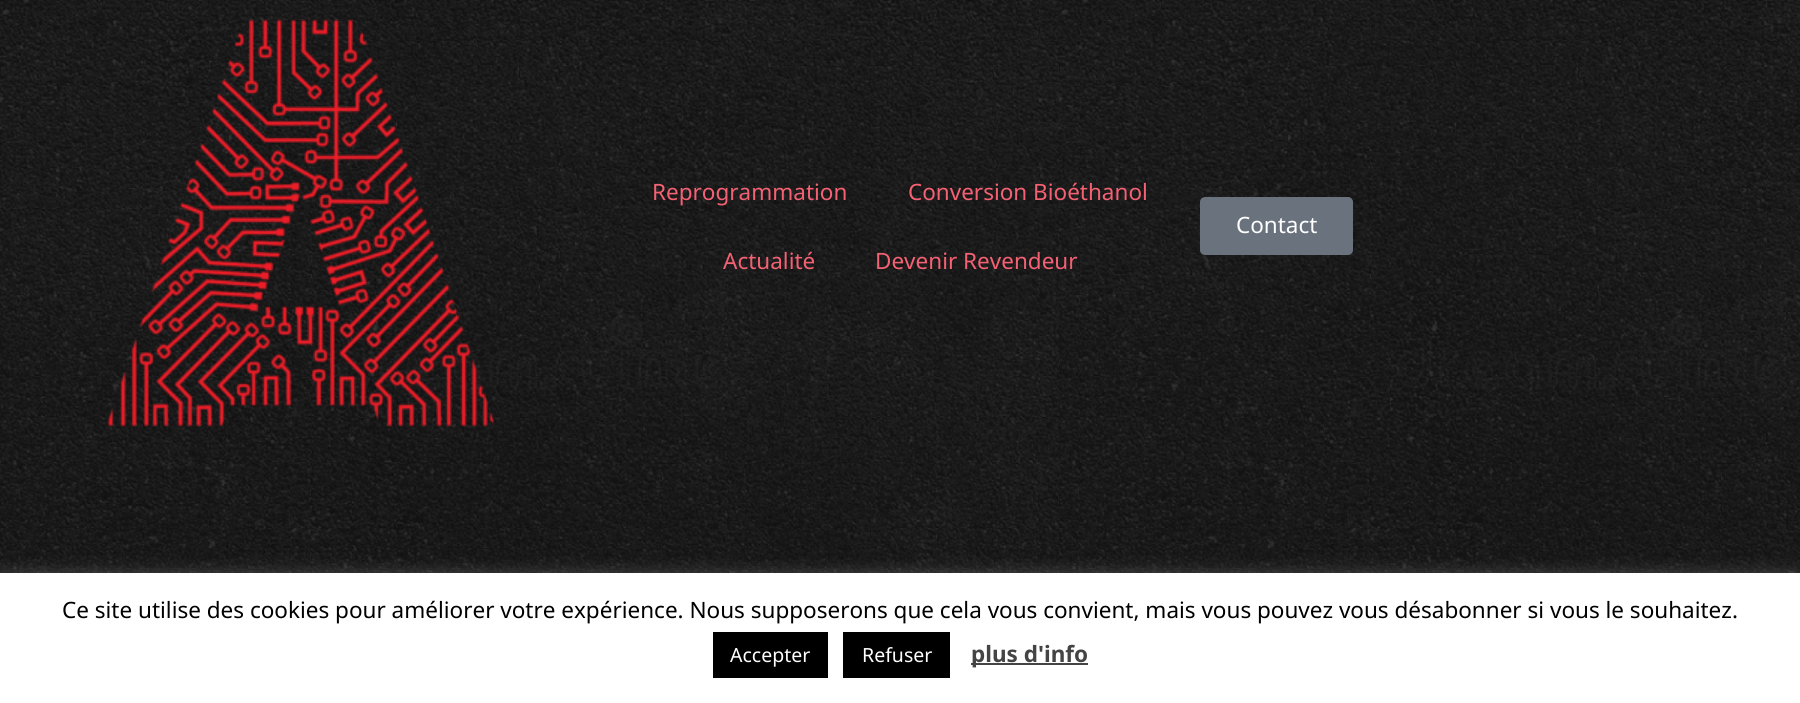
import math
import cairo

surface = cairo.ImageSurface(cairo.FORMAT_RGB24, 1800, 703)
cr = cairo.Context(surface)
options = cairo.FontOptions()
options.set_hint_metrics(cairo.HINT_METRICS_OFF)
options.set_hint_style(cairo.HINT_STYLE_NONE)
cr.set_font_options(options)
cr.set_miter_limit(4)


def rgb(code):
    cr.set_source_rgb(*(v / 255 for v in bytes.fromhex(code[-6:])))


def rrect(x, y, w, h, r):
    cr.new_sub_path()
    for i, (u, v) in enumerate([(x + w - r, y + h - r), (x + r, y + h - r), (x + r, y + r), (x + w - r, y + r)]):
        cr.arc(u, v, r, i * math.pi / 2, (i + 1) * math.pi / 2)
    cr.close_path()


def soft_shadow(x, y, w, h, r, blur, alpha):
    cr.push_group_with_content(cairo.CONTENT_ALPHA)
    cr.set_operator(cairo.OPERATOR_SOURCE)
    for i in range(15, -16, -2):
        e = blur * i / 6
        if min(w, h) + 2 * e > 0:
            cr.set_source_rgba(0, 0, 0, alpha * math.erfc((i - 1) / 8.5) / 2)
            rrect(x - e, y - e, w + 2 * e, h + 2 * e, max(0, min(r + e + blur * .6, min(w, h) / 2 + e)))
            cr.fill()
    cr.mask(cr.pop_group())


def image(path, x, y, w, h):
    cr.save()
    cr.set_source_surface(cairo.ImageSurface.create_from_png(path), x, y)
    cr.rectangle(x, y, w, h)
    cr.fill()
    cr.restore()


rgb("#ffffff")
cr.paint()
image("img/1.png", 0, 0, 1800, 573)
image("img/2.png", 107, 19, 388, 408)
rgb("#69727d")
rrect(1200, 197, 153, 58, 5)
cr.fill()
rgb("#acabab")
soft_shadow(0, 572, 1800, 130, 0, 7.5, 0.3)
for x, y, w, h, color in [
    (0, 573, 1800, 130, "#ffffff"),
    (713, 632, 115, 46, "#000000"),
    (843, 632, 107, 46, "#000000"),
    (971, 663, 117, 2, "#444444"),
]:
    rgb(color)
    cr.rectangle(x, y, w, h)
    cr.fill()
cr.select_font_face("Noto Sans")
cr.set_font_size(22.5)
rgb("#f46173")
for x, y, s in [
    (652, 200, "Reprogrammation"),
    (908, 200, "Conversion Bioéthanol"),
    (723, 269, "Actualité"),
    (875, 269, "Devenir Revendeur"),
]:
    cr.move_to(x, y)
    cr.show_text(s)
rgb("#ffffff")
cr.move_to(1236, 233)
cr.show_text("Contact")
rgb("#000000")
cr.move_to(62, 618)
cr.show_text("Ce site utilise des cookies pour améliorer votre expérience. Nous supposerons que cela vous convient, mais vous pouvez vous désabonner si vous le souhaitez.")
cr.set_font_size(19.5)
rgb("#ffffff")
cr.move_to(730, 662)
cr.show_text("Accepter")
cr.move_to(862, 662)
cr.show_text("Refuser")
cr.select_font_face("Noto Sans", cairo.FONT_SLANT_NORMAL, cairo.FONT_WEIGHT_BOLD)
cr.set_font_size(22.5)
rgb("#444444")
cr.move_to(971, 662)
cr.show_text("plus d'info")
surface.write_to_png("page.png")
